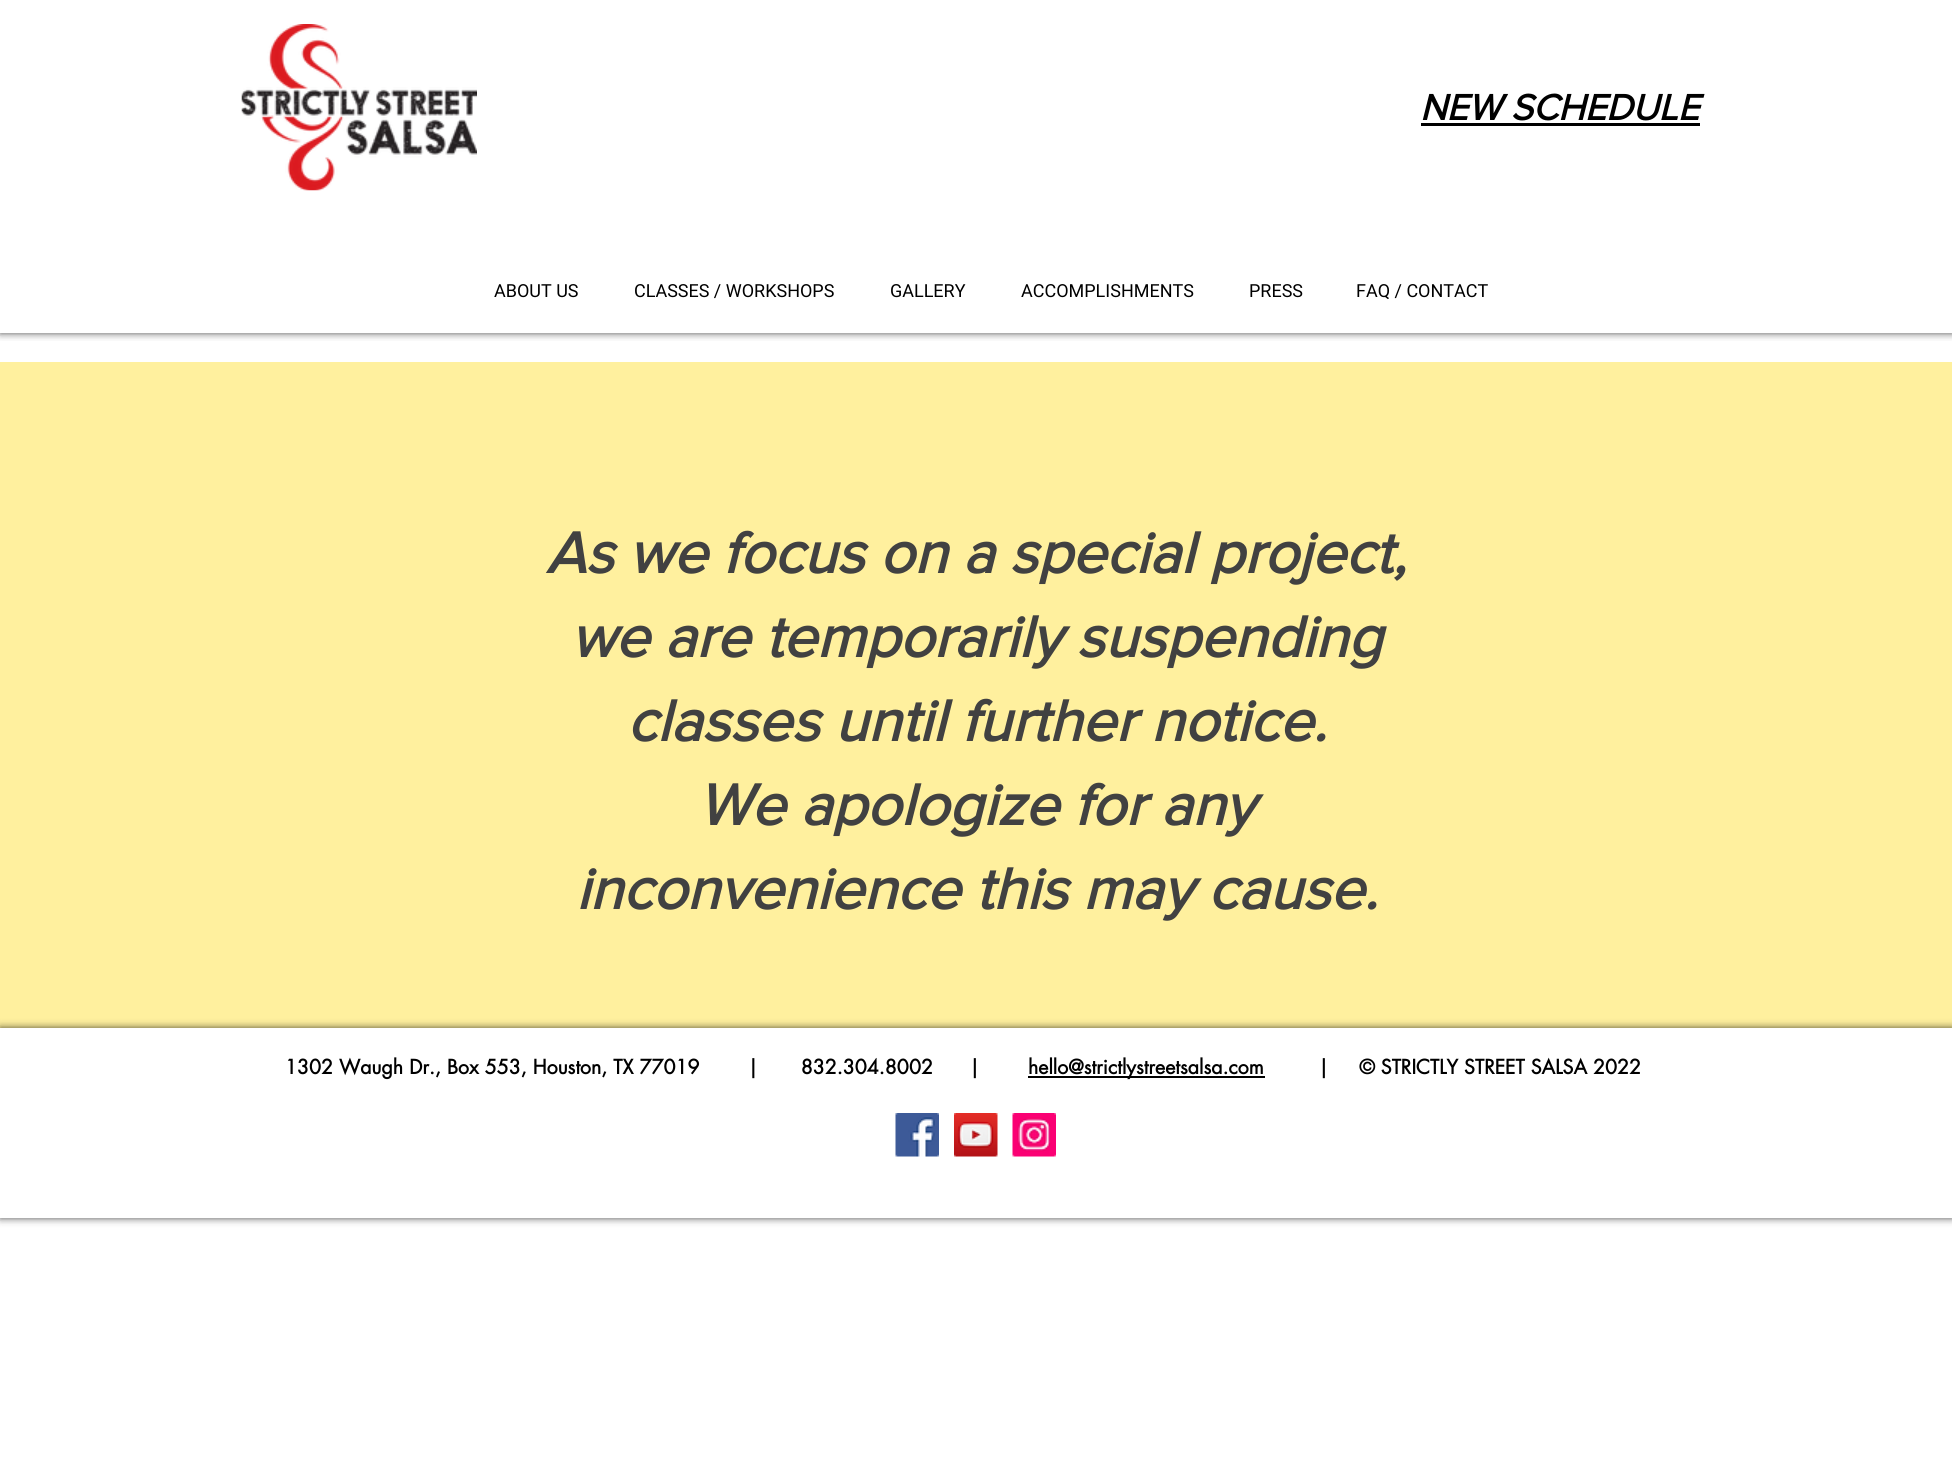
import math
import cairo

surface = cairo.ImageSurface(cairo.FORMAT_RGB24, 1952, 1462)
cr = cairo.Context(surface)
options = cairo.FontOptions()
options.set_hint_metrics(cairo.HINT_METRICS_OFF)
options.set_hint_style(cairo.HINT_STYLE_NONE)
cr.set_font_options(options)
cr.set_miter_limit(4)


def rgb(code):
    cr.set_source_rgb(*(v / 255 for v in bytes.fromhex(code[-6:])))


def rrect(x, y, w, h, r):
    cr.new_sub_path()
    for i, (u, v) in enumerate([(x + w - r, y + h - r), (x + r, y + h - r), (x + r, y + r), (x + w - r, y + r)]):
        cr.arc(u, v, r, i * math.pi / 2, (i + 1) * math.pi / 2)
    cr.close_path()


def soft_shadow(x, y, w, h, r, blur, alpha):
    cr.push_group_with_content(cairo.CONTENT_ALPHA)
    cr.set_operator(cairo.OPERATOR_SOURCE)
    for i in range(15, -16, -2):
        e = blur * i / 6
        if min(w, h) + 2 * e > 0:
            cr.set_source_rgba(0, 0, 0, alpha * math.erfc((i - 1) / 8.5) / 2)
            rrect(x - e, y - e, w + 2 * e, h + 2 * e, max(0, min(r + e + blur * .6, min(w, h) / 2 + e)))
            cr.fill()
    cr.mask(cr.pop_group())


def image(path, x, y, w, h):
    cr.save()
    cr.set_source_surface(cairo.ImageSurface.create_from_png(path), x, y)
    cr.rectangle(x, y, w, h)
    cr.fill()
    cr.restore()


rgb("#ffffff")
cr.paint()
cr.save()
cr.rectangle(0, 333, 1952, 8)
cr.clip()
rgb("#000000")
soft_shadow(0, 0, 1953, 333, 0, 4, 0.7)
cr.restore()
image("img/1.png", 241, 24, 236, 167)
rgb("#000000")
cr.rectangle(1421, 123, 279, 3)
cr.fill()
rgb("#fff09e")
cr.rectangle(0, 362, 1952, 666)
cr.fill()
cr.save()
cr.set_fill_rule(cairo.FILL_RULE_EVEN_ODD)
cr.new_path()
cr.move_to(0, 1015)
cr.line_to(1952, 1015)
cr.line_to(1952, 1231)
cr.line_to(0, 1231)
cr.close_path()
cr.move_to(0, 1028)
cr.line_to(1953, 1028)
cr.line_to(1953, 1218)
cr.line_to(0, 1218)
cr.close_path()
cr.clip()
rgb("#000000")
soft_shadow(0, 1028, 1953, 190, 0, 4, 0.7)
cr.restore()
rgb("#000000")
cr.rectangle(1028, 1076, 237, 2)
cr.fill()
image("img/2.png", 895, 1113, 44, 44)
image("img/3.png", 954, 1113, 44, 44)
image("img/4.png", 1012, 1113, 44, 44)
cr.select_font_face("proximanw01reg", cairo.FONT_SLANT_ITALIC, cairo.FONT_WEIGHT_BOLD)
cr.set_font_size(37.5)
cr.move_to(1420, 120)
cr.show_text("NEW SCHEDULE")
cr.select_font_face("Roboto")
cr.set_font_size(18)
for x, y, s in [
    (494, 297, "ABOUT US"),
    (634, 297, "CLASSES / WORKSHOPS"),
    (890, 297, "GALLERY"),
    (1021, 297, "ACCOMPLISHMENTS"),
    (1249, 297, "PRESS"),
    (1356, 297, "FAQ / CONTACT"),
]:
    cr.move_to(x, y)
    cr.show_text(s)
cr.select_font_face("proximanw01reg", cairo.FONT_SLANT_ITALIC, cairo.FONT_WEIGHT_BOLD)
cr.set_font_size(60)
rgb("#414141")
for x, y, s in [
    (546, 573, "As we focus on a special project,"),
    (571, 657, "we are temporarily suspending"),
    (627, 741, "classes until further notice."),
    (698, 825, "We apologize for any"),
    (576, 909, "inconvenience this may cause."),
]:
    cr.move_to(x, y)
    cr.show_text(s)
cr.select_font_face("futura", cairo.FONT_SLANT_NORMAL, cairo.FONT_WEIGHT_BOLD)
cr.set_font_size(19.5)
rgb("#000000")
for x, y, s in [
    (285, 1074, "1302 Waugh Dr., Box 553, Houston, TX 77019        |       832.304.8002      |"),
    (1028, 1074, "hello@strictlystreetsalsa.com"),
    (1318, 1074, "|     © STRICTLY STREET SALSA 2022"),
]:
    cr.move_to(x, y)
    cr.show_text(s)
surface.write_to_png("page.png")
